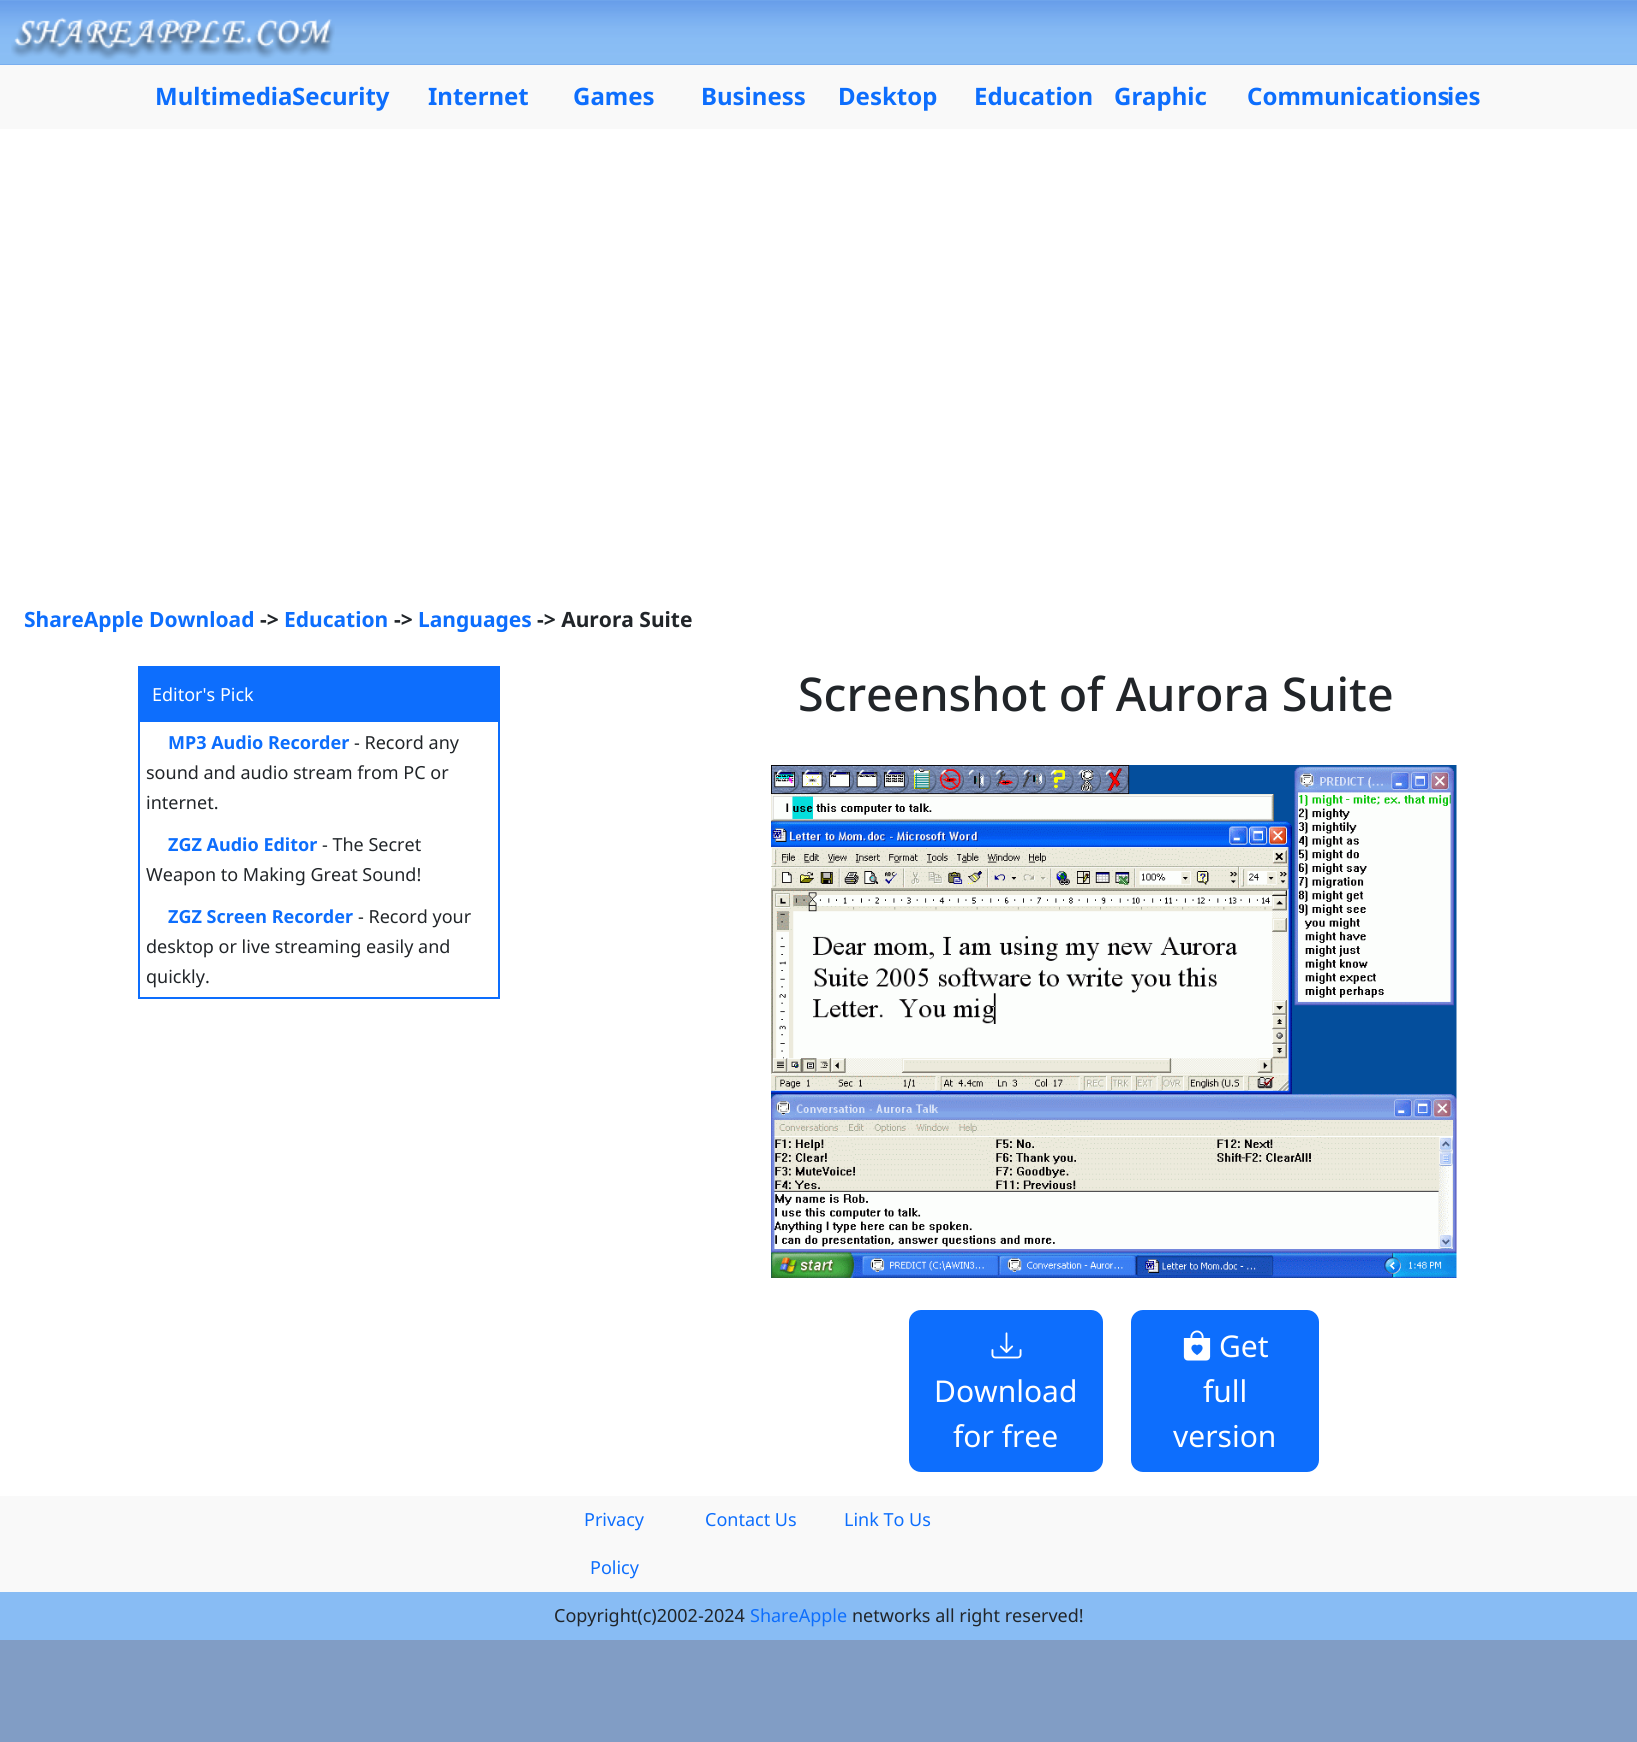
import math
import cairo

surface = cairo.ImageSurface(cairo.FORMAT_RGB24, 1637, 1742)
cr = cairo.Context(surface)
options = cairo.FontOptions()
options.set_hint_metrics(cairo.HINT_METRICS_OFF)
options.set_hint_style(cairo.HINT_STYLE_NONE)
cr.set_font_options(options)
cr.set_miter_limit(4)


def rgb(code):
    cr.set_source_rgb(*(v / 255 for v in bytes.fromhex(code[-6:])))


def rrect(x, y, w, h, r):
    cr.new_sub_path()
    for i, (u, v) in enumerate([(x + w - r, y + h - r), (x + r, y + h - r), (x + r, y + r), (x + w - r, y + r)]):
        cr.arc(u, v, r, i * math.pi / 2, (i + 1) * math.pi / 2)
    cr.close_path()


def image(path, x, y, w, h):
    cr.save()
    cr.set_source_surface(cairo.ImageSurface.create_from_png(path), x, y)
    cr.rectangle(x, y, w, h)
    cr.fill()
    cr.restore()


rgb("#819dc5")
cr.paint()
image("img/1.png", 0, 0, 1637, 65)
image("img/2.png", 11, 17, 324, 43)
rgb("#f9f9f9")
cr.rectangle(0, 65, 1637, 64)
cr.fill()
rgb("#ffffff")
cr.rectangle(0, 129, 1637, 1367)
cr.fill()
cr.rectangle(139, 667, 360, 331)
rgb("#0d6efd")
cr.stroke()
cr.rectangle(140, 668, 358, 54)
cr.fill()
image("img/3.png", 771, 765, 686, 513)
rrect(910, 1311, 192, 160, 11)
cr.fill_preserve()
cr.stroke()
image("img/4.png", 991, 1332, 31, 27)
rrect(1132, 1311, 186, 160, 11)
cr.fill_preserve()
cr.stroke()
image("img/5.png", 1183, 1330, 28, 31)
rgb("#88bcf4")
cr.rectangle(0, 1592, 1637, 48)
cr.fill()
rgb("#f9f9f9")
cr.rectangle(0, 1496, 1637, 96)
cr.fill()
cr.select_font_face("Noto Sans", cairo.FONT_SLANT_NORMAL, cairo.FONT_WEIGHT_BOLD)
cr.set_font_size(24)
rgb("#0d6efd")
for x, y, s in [
    (155, 105, "Multimedia"),
    (292, 105, "Security"),
    (428, 105, "Internet"),
    (573, 105, "Games"),
    (701, 105, "Business"),
    (838, 105, "Desktop"),
    (974, 105, "Education"),
    (1114, 105, "Graphic"),
    (1247, 105, "Communications"),
    (1447, 105, "ies"),
]:
    cr.move_to(x, y)
    cr.show_text(s)
cr.set_font_size(21)
cr.move_to(24, 627)
cr.show_text("ShareApple Download")
rgb("#212529")
cr.move_to(260, 627)
cr.show_text("->")
rgb("#0d6efd")
cr.move_to(284, 627)
cr.show_text("Education")
rgb("#212529")
cr.move_to(394, 627)
cr.show_text("->")
rgb("#0d6efd")
cr.move_to(418, 627)
cr.show_text("Languages")
rgb("#212529")
cr.move_to(537, 627)
cr.show_text("-> Aurora Suite")
cr.select_font_face("Noto Sans")
cr.set_font_size(18)
rgb("#ffffff")
cr.move_to(152, 701)
cr.show_text("Editor's Pick")
cr.select_font_face("Noto Sans", cairo.FONT_SLANT_NORMAL, cairo.FONT_WEIGHT_BOLD)
rgb("#0d6efd")
cr.move_to(168, 749)
cr.show_text("MP3 Audio Recorder")
cr.select_font_face("Noto Sans")
rgb("#212529")
for x, y, s in [
    (354, 749, "- Record any"),
    (146, 779, "sound and audio stream from PC or"),
    (146, 809, "internet."),
]:
    cr.move_to(x, y)
    cr.show_text(s)
cr.select_font_face("Noto Sans", cairo.FONT_SLANT_NORMAL, cairo.FONT_WEIGHT_BOLD)
rgb("#0d6efd")
cr.move_to(168, 851)
cr.show_text("ZGZ Audio Editor")
cr.select_font_face("Noto Sans")
rgb("#212529")
cr.move_to(322, 851)
cr.show_text("- The Secret")
cr.move_to(146, 881)
cr.show_text("Weapon to Making Great Sound!")
cr.select_font_face("Noto Sans", cairo.FONT_SLANT_NORMAL, cairo.FONT_WEIGHT_BOLD)
rgb("#0d6efd")
cr.move_to(168, 923)
cr.show_text("ZGZ Screen Recorder")
cr.select_font_face("Noto Sans")
rgb("#212529")
for x, y, s in [
    (358, 923, "- Record your"),
    (146, 953, "desktop or live streaming easily and"),
    (146, 983, "quickly."),
]:
    cr.move_to(x, y)
    cr.show_text(s)
cr.select_font_face("Noto Sans Medium")
cr.set_font_size(46.5)
cr.move_to(798, 711)
cr.show_text("Screenshot of Aurora Suite")
cr.select_font_face("Noto Sans")
cr.set_font_size(30)
rgb("#ffffff")
for x, y, s in [
    (934, 1402, "Download"),
    (953, 1447, "for free"),
    (1219, 1357, "Get"),
    (1203, 1402, "full"),
    (1173, 1447, "version"),
]:
    cr.move_to(x, y)
    cr.show_text(s)
cr.set_font_size(18)
rgb("#0d6efd")
for x, y, s in [
    (584, 1526, "Privacy"),
    (590, 1574, "Policy"),
    (705, 1526, "Contact Us"),
    (844, 1526, "Link To Us"),
]:
    cr.move_to(x, y)
    cr.show_text(s)
rgb("#212529")
cr.move_to(554, 1622)
cr.show_text("Copyright(c)2002-2024")
rgb("#0d6efd")
cr.move_to(750, 1622)
cr.show_text("ShareApple")
rgb("#212529")
cr.move_to(852, 1622)
cr.show_text("networks all right reserved!")
surface.write_to_png("page.png")
